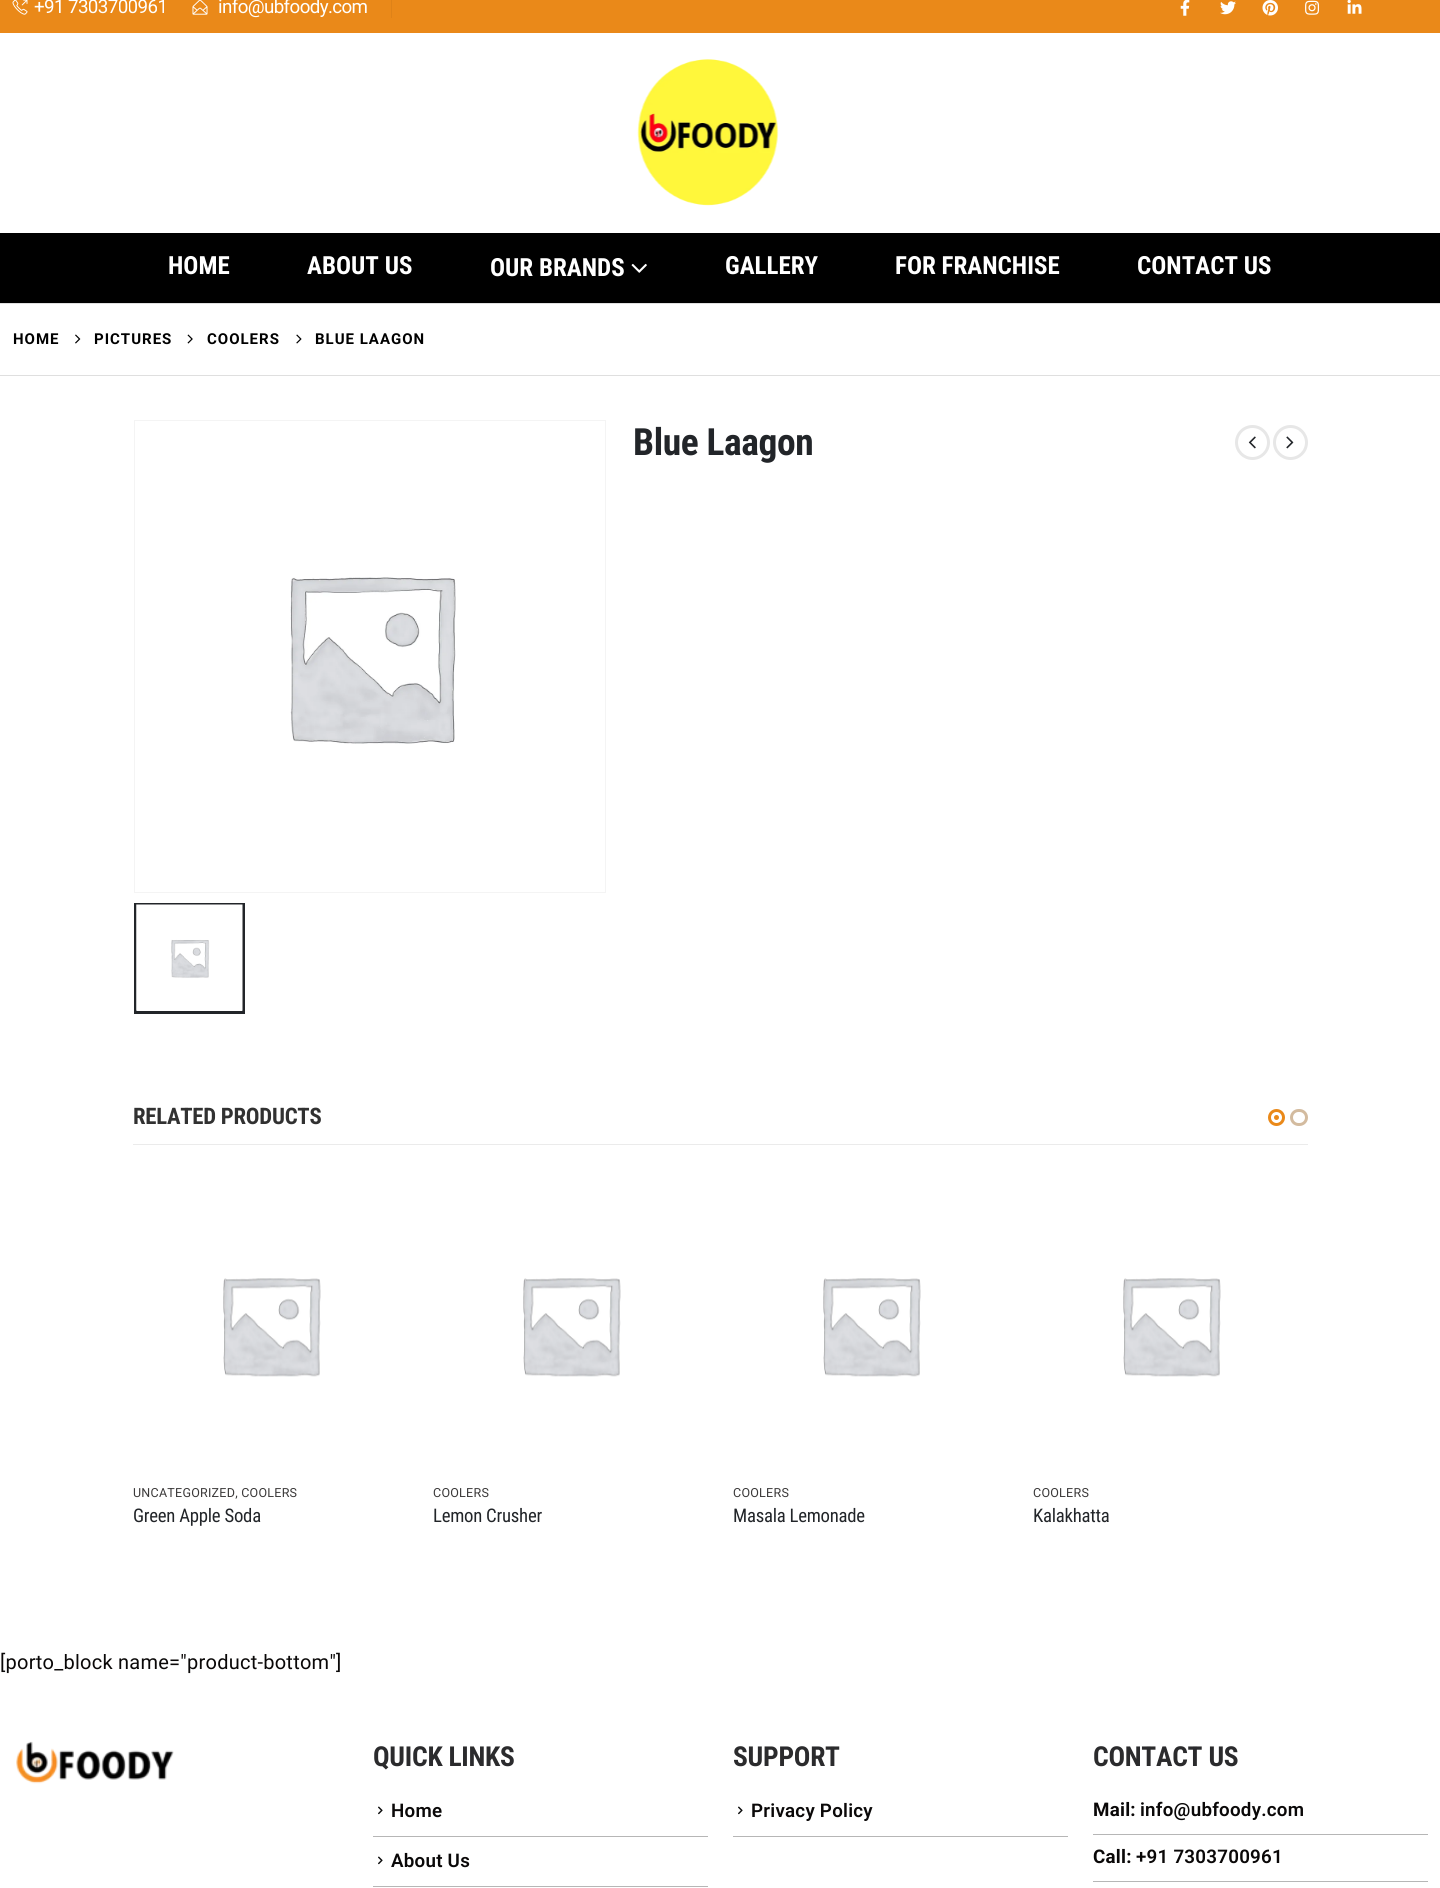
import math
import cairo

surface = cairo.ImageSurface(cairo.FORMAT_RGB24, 1440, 1888)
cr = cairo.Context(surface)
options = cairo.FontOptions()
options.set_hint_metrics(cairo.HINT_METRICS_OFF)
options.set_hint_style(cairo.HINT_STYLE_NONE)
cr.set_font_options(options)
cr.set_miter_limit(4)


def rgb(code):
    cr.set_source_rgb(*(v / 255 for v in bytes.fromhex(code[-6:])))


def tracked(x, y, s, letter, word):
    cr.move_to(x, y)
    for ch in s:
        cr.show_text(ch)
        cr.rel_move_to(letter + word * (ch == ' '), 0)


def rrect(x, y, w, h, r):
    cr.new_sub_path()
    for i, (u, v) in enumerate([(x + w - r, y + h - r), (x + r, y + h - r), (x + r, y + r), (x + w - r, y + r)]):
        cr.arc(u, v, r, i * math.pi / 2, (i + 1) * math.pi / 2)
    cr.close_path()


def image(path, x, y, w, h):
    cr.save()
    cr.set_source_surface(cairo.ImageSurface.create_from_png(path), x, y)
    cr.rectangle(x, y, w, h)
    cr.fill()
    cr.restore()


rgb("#ffffff")
cr.paint()
rgb("#ea8919")
cr.rectangle(0, 0, 1440, 33)
cr.fill()
image("img/1.png", 12, 0, 16, 15)
image("img/2.png", 192, 0, 16, 15)
rgb("#de8218")
cr.rectangle(391, 0, 1, 18)
cr.fill()
image("img/3.png", 1180, 0, 10, 16)
image("img/4.png", 1220, 1, 16, 14)
image("img/5.png", 1262, 0, 16, 16)
image("img/6.png", 1305, 0, 15, 15)
image("img/7.png", 1347, 0, 15, 14)
image("img/8.png", 637, 59, 142, 147)
rgb("#000000")
cr.rectangle(0, 233, 1440, 70)
cr.fill()
image("img/9.png", 631, 263, 16, 10)
rgb("#dfdfdf")
cr.rectangle(0, 303, 1440, 1)
cr.fill()
cr.rectangle(0, 375, 1440, 1)
cr.fill()
image("img/10.png", 75, 334, 6, 10)
image("img/11.png", 187, 334, 6, 10)
image("img/12.png", 296, 334, 6, 10)
cr.rectangle(134.5, 420.5, 471, 472)
rgb("#f4f4f4")
cr.set_line_width(1)
cr.stroke()
image("img/13.png", 290, 577, 166, 167)
cr.rectangle(135.5, 904.5, 108, 108)
rgb("#222529")
cr.set_line_width(3)
cr.stroke()
image("img/14.png", 136, 904, 107, 107)
cr.arc(1252.5, 442.5, 16, 0, 2 * math.pi)
rgb("#e7e7e7")
cr.stroke()
image("img/15.png", 1248, 436, 8, 13)
cr.arc(1290.5, 442.5, 16, 0, 2 * math.pi)
cr.stroke()
image("img/16.png", 1286, 436, 8, 13)
rgb("#ebebeb")
cr.rectangle(133, 1144, 1175, 1)
cr.fill()
cr.arc(1276.5, 1117.5, 7, 0, 2 * math.pi)
rgb("#ea8919")
cr.stroke()
cr.arc(1276.5, 1117.5, 2.5, 0, 2 * math.pi)
cr.fill()
rrect(1291.5, 1110.5, 15, 14, 7)
rgb("#d3bb9f")
cr.stroke()
image("img/17.png", 223, 1278, 98, 99)
image("img/17.png", 523, 1278, 98, 99)
image("img/18.png", 823, 1278, 98, 99)
image("img/19.png", 1123, 1278, 98, 99)
image("img/20.png", 16, 1741, 158, 43)
image("img/21.png", 378, 1806, 5, 9)
rgb("#b6b6b6")
cr.rectangle(373, 1836, 335, 1)
cr.fill()
image("img/21.png", 378, 1856, 5, 9)
cr.rectangle(373, 1886, 335, 1)
cr.fill()
cr.rectangle(733, 1836, 335, 1)
cr.fill()
image("img/21.png", 738, 1806, 5, 9)
cr.rectangle(1093, 1834, 335, 1)
cr.fill()
cr.rectangle(1093, 1881, 335, 1)
cr.fill()
cr.select_font_face("Roboto")
cr.set_font_size(18.75)
rgb("#ffffff")
tracked(34, 13, "+91 7303700961", -0.6, 0)
tracked(218, 13, "info@ubfoody.com", -0.6, 0)
cr.select_font_face("Roboto Condensed", cairo.FONT_SLANT_NORMAL, cairo.FONT_WEIGHT_BOLD)
cr.set_font_size(25)
for x, y, s in [
    (168, 274, "HOME"),
    (307, 274, "ABOUT US"),
    (490, 276, "OUR BRANDS"),
    (725, 274, "GALLERY"),
    (895, 274, "FOR FRANCHISE"),
    (1137, 274, "CONTACT US"),
]:
    cr.move_to(x, y)
    cr.show_text(s)
cr.select_font_face("Roboto", cairo.FONT_SLANT_NORMAL, cairo.FONT_WEIGHT_BOLD)
cr.set_font_size(15)
rgb("#000000")
for x, y, s in [
    (13, 344, "HOME"),
    (94, 344, "PICTURES"),
    (207, 344, "COOLERS"),
    (315, 344, "BLUE LAAGON"),
]:
    tracked(x, y, s, 1, 0)
cr.select_font_face("Roboto Condensed", cairo.FONT_SLANT_NORMAL, cairo.FONT_WEIGHT_BOLD)
cr.set_font_size(37.5)
rgb("#222529")
tracked(633, 455, "Blue Laagon", -0.4, 0)
cr.set_font_size(22.75)
rgb("#313131")
tracked(133, 1124, "RELATED PRODUCTS", -0.25, 0)
cr.select_font_face("Roboto")
cr.set_font_size(12.5)
rgb("#3b3939")
tracked(133, 1497, "UNCATEGORIZED, COOLERS", 0.25, 0)
cr.select_font_face("Roboto Condensed")
cr.set_font_size(18.75)
rgb("#222529")
tracked(133, 1522, "Green Apple Soda", -0.25, 0)
cr.select_font_face("Roboto")
cr.set_font_size(12.5)
rgb("#3b3939")
tracked(433, 1497, "COOLERS", 0.25, 0)
cr.select_font_face("Roboto Condensed")
cr.set_font_size(18.75)
rgb("#222529")
tracked(433, 1522, "Lemon Crusher", -0.25, 0)
cr.select_font_face("Roboto")
cr.set_font_size(12.5)
rgb("#3b3939")
tracked(733, 1497, "COOLERS", 0.25, 0)
cr.select_font_face("Roboto Condensed")
cr.set_font_size(18.75)
rgb("#222529")
tracked(733, 1522, "Masala Lemonade", -0.25, 0)
cr.select_font_face("Roboto")
cr.set_font_size(12.5)
rgb("#3b3939")
tracked(1033, 1497, "COOLERS", 0.25, 0)
cr.select_font_face("Roboto Condensed")
cr.set_font_size(18.75)
rgb("#222529")
tracked(1033, 1522, "Kalakhatta", -0.25, 0)
cr.select_font_face("Roboto")
cr.set_font_size(20)
rgb("#0a0808")
tracked(0, 1669, "[porto_block name=\"product-bottom\"]", 0.25, 0)
cr.select_font_face("Roboto Condensed", cairo.FONT_SLANT_NORMAL, cairo.FONT_WEIGHT_BOLD)
cr.set_font_size(27.5)
rgb("#2b2b2d")
tracked(373, 1766, "QUICK LINKS", -0.25, 0)
cr.select_font_face("Roboto SemiBold")
cr.set_font_size(18.75)
rgb("#0a0808")
tracked(391, 1817, "Home", 0.25, 0)
tracked(391, 1867, "About Us", 0.25, 0)
cr.select_font_face("Roboto Condensed", cairo.FONT_SLANT_NORMAL, cairo.FONT_WEIGHT_BOLD)
cr.set_font_size(27.5)
rgb("#2b2b2d")
tracked(733, 1766, "SUPPORT", -0.25, 0)
cr.select_font_face("Roboto SemiBold")
cr.set_font_size(18.75)
rgb("#0a0808")
tracked(751, 1817, "Privacy Policy", 0.25, 0)
cr.select_font_face("Roboto Condensed", cairo.FONT_SLANT_NORMAL, cairo.FONT_WEIGHT_BOLD)
cr.set_font_size(27.5)
rgb("#2b2b2d")
tracked(1093, 1766, "CONTACT US", -0.25, 0)
cr.select_font_face("Roboto", cairo.FONT_SLANT_NORMAL, cairo.FONT_WEIGHT_BOLD)
cr.set_font_size(18.75)
rgb("#0a0808")
tracked(1093, 1816, "Mail:", 0.25, 0)
cr.select_font_face("Roboto SemiBold")
tracked(1140, 1816, "info@ubfoody.com", 0.25, 0)
cr.select_font_face("Roboto", cairo.FONT_SLANT_NORMAL, cairo.FONT_WEIGHT_BOLD)
tracked(1093, 1863, "Call:", 0.25, 0)
cr.select_font_face("Roboto SemiBold")
tracked(1136, 1863, "+91 7303700961", 0.25, 0)
surface.write_to_png("page.png")
